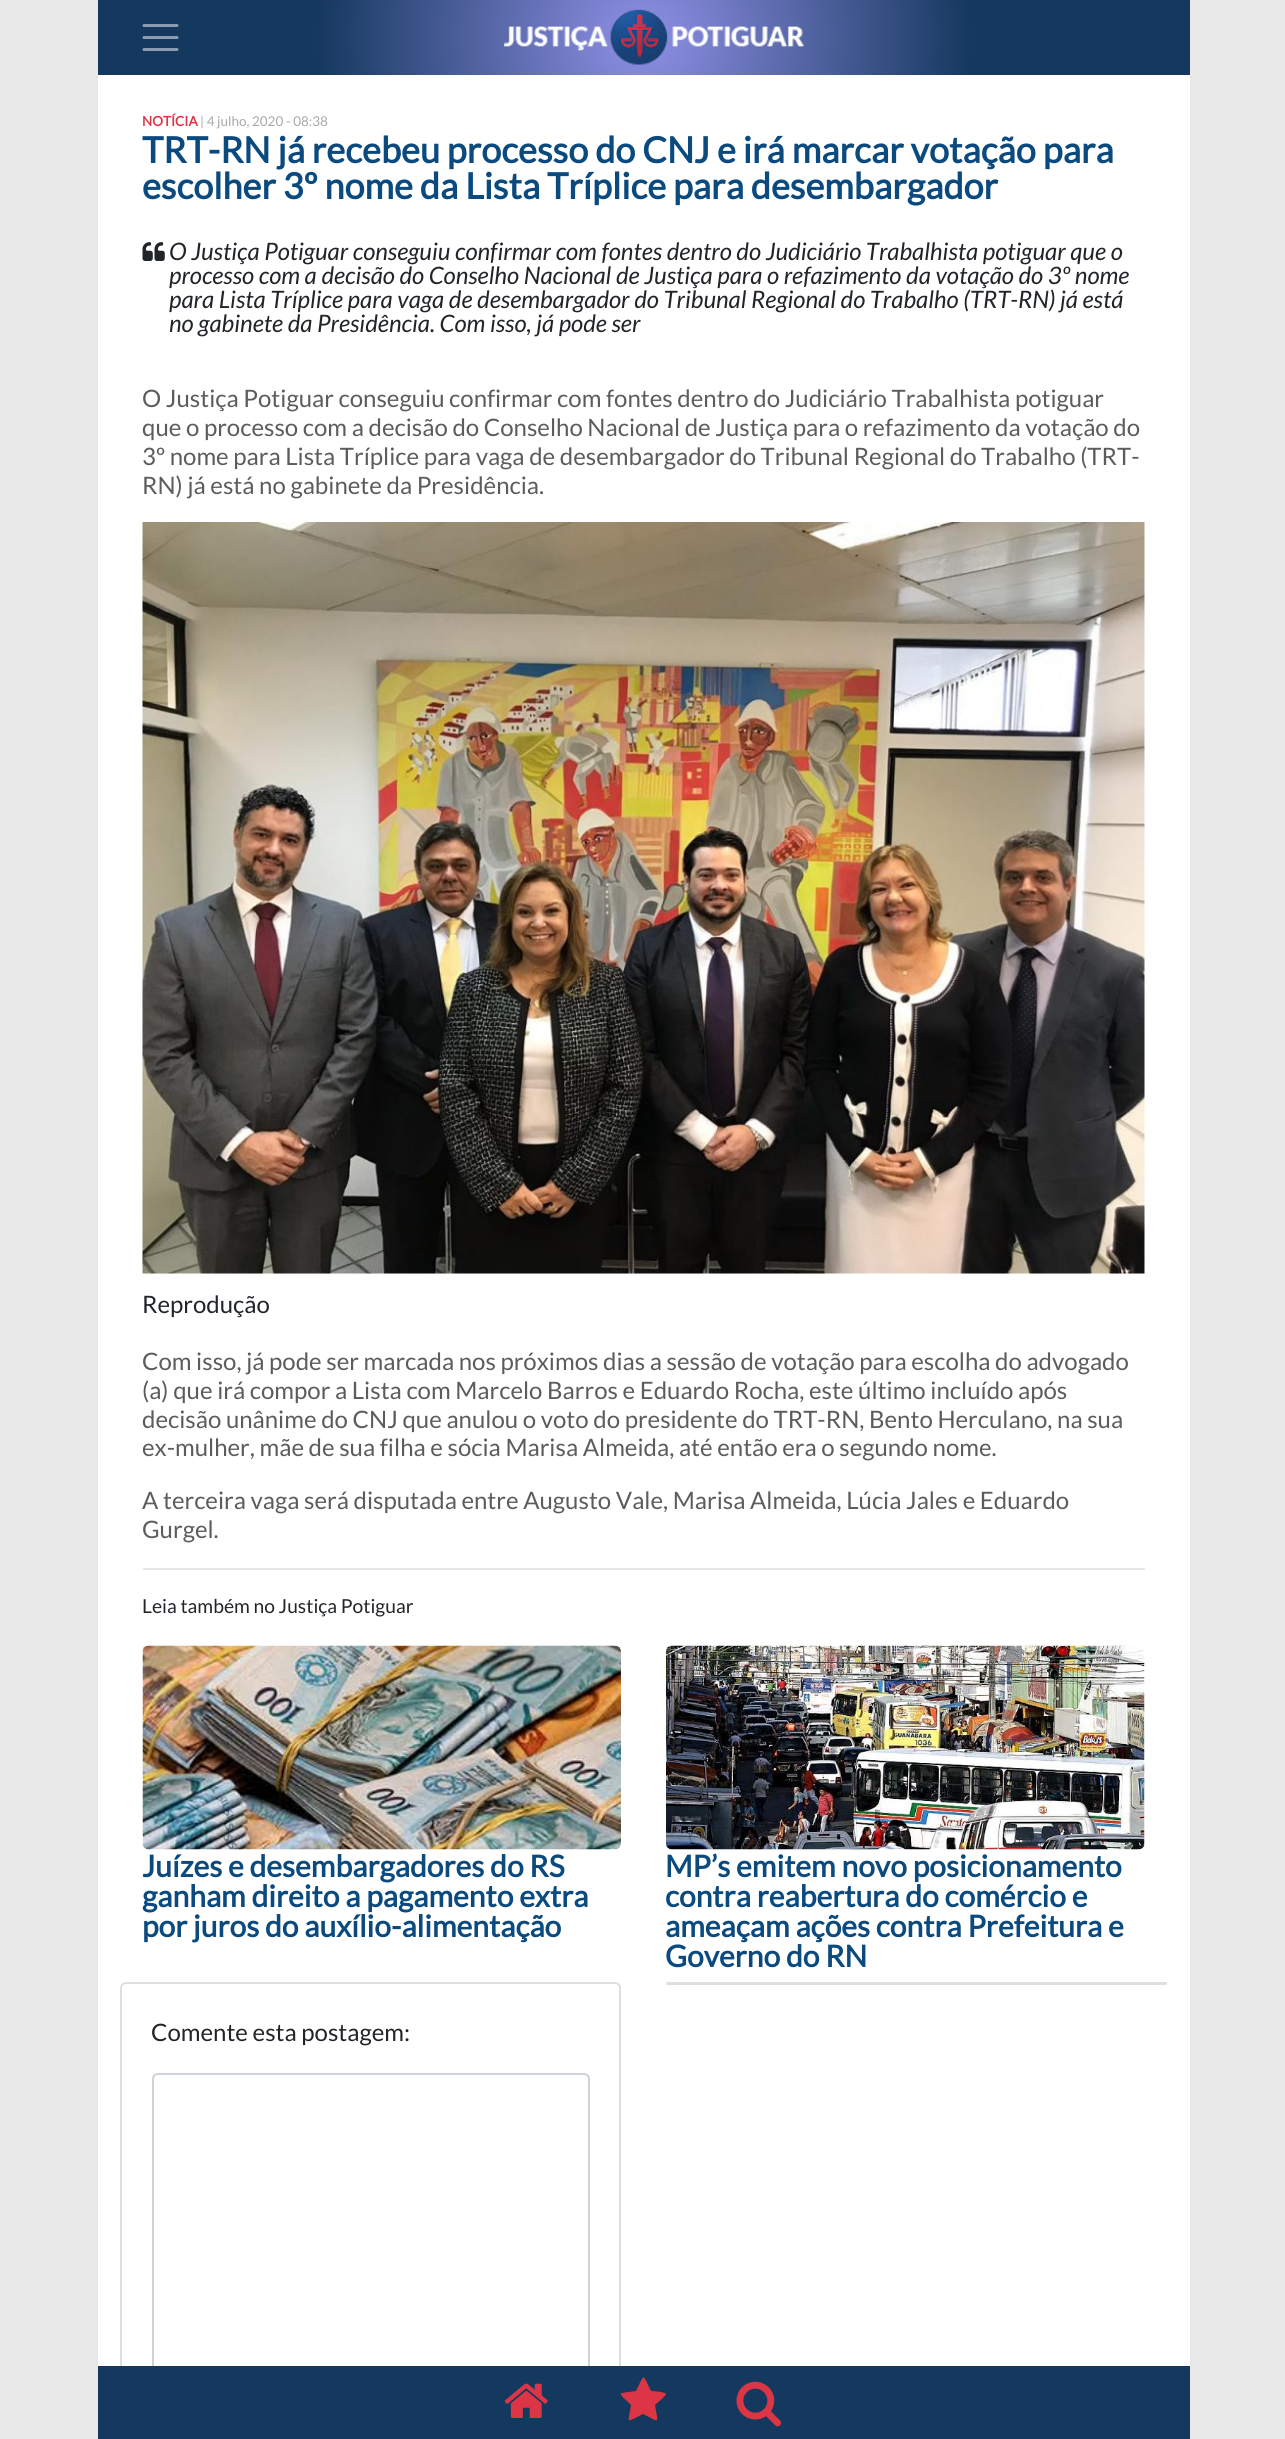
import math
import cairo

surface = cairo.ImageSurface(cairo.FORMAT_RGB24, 1285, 2439)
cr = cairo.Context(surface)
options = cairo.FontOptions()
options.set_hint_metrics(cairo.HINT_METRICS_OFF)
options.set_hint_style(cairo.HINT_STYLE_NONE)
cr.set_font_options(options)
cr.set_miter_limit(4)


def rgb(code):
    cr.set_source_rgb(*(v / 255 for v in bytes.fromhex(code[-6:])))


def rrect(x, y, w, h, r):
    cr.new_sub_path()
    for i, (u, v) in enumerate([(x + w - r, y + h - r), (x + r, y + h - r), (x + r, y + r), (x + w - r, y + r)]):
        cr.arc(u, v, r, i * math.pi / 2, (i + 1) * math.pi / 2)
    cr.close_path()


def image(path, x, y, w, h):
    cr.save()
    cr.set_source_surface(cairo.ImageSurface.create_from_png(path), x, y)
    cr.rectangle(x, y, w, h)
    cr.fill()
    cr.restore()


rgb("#e8e8e8")
cr.paint()
rgb("#ffffff")
cr.rectangle(98, 75, 1092, 2291)
cr.fill()
gradient = cairo.RadialGradient(644, 38, 0, 644, 38, 547)
gradient.add_color_stop_rgba(0, 0.565, 0.565, 0.902, 1)
gradient.add_color_stop_rgba(0.6, 0.082, 0.22, 0.369, 1)
cr.set_source(gradient)
cr.rectangle(98, 0, 1092, 75)
cr.fill()
cr.new_path()
cr.move_to(144, 25.5)
cr.line_to(177, 25.5)
cr.move_to(144, 37.5)
cr.line_to(177, 37.5)
cr.move_to(144, 49.5)
cr.line_to(177, 49.5)
rgb("#8a9caf")
cr.set_line_width(3)
cr.set_line_cap(cairo.LINE_CAP_ROUND)
cr.stroke()
image("img/1.png", 504, 9, 300, 56)
image("img/2.png", 142, 242, 23, 19)
image("img/3.png", 142, 522, 1003, 752)
rgb("#e6e6e6")
cr.rectangle(143, 1568, 1002, 2)
cr.fill()
image("img/4.png", 142, 1645, 479, 205)
image("img/5.png", 666, 1645, 479, 205)
rgb("#dfdfdf")
rrect(666, 1982, 501, 3, 1.5)
cr.fill()
rrect(121, 1983, 499, 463, 5)
cr.set_line_width(2)
cr.set_line_cap(cairo.LINE_CAP_BUTT)
cr.stroke()
rrect(153, 2074, 436, 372, 5)
rgb("#ced4da")
cr.stroke()
rgb("#15385e")
cr.rectangle(98, 2366, 1092, 73)
cr.fill()
image("img/6.png", 504, 2383, 44, 35)
rgb("#dc3545")
cr.new_path()
cr.move_to(666, 2394)
cr.curve_to(666, 2396, 657, 2403, 655, 2405)
cr.curve_to(658, 2424, 661, 2423, 643, 2414)
cr.curve_to(625, 2423, 628, 2424, 631, 2405)
cr.curve_to(617, 2391, 616, 2394, 636, 2391)
cr.curve_to(645, 2373, 642, 2373, 651, 2391)
cr.curve_to(653, 2391, 666, 2392, 666, 2394)
cr.close_path()
cr.fill()
image("img/7.png", 736, 2381, 45, 46)
cr.select_font_face("Lato", cairo.FONT_SLANT_NORMAL, cairo.FONT_WEIGHT_BOLD)
cr.set_font_size(13.5)
cr.move_to(142, 126)
cr.show_text("NOTÍCIA")
cr.select_font_face("Lato")
rgb("#a8a9ab")
cr.move_to(200, 126)
cr.show_text("| 4 julho, 2020 - 08:38")
cr.select_font_face("Lato", cairo.FONT_SLANT_NORMAL, cairo.FONT_WEIGHT_BOLD)
cr.set_font_size(36)
rgb("#0a4a7f")
cr.move_to(142, 163)
cr.show_text("TRT-RN já recebeu processo do CNJ e irá marcar votação para")
cr.move_to(142, 199)
cr.show_text("escolher 3º nome da Lista Tríplice para desembargador")
cr.select_font_face("Lato", cairo.FONT_SLANT_ITALIC)
cr.set_font_size(24)
rgb("#212529")
for x, y, s in [
    (169, 260, "O Justiça Potiguar conseguiu confirmar com fontes dentro do Judiciário Trabalhista potiguar que o"),
    (169, 284, "processo com a decisão do Conselho Nacional de Justiça para o refazimento da votação do 3º nome"),
    (169, 308, "para Lista Tríplice para vaga de desembargador do Tribunal Regional do Trabalho (TRT-RN) já está"),
    (169, 332, "no gabinete da Presidência. Com isso, já pode ser"),
]:
    cr.move_to(x, y)
    cr.show_text(s)
cr.select_font_face("Lato")
rgb("#5c5c5c")
for x, y, s in [
    (142, 407, "O Justiça Potiguar conseguiu confirmar com fontes dentro do Judiciário Trabalhista potiguar"),
    (142, 436, "que o processo com a decisão do Conselho Nacional de Justiça para o refazimento da votação do"),
    (142, 465, "3º nome para Lista Tríplice para vaga de desembargador do Tribunal Regional do Trabalho (TRT-"),
    (142, 494, "RN) já está no gabinete da Presidência."),
]:
    cr.move_to(x, y)
    cr.show_text(s)
rgb("#212529")
cr.move_to(142, 1313)
cr.show_text("Reprodução")
rgb("#5c5c5c")
for x, y, s in [
    (142, 1370, "Com isso, já pode ser marcada nos próximos dias a sessão de votação para escolha do advogado"),
    (142, 1399, "(a) que irá compor a Lista com Marcelo Barros e Eduardo Rocha, este último incluído após"),
    (142, 1428, "decisão unânime do CNJ que anulou o voto do presidente do TRT-RN, Bento Herculano, na sua"),
    (142, 1456, "ex-mulher, mãe de sua filha e sócia Marisa Almeida, até então era o segundo nome."),
    (142, 1509, "A terceira vaga será disputada entre Augusto Vale, Marisa Almeida, Lúcia Jales e Eduardo"),
    (142, 1538, "Gurgel."),
]:
    cr.move_to(x, y)
    cr.show_text(s)
cr.set_font_size(19.25)
rgb("#212529")
cr.move_to(142, 1613)
cr.show_text("Leia também no Justiça Potiguar")
cr.select_font_face("Lato", cairo.FONT_SLANT_NORMAL, cairo.FONT_WEIGHT_BOLD)
cr.set_font_size(30)
rgb("#0a4a7f")
for x, y, s in [
    (142, 1877, "Juízes e desembargadores do RS"),
    (142, 1907, "ganham direito a pagamento extra"),
    (142, 1937, "por juros do auxílio-alimentação"),
    (665, 1877, "MP’s emitem novo posicionamento"),
    (665, 1907, "contra reabertura do comércio e"),
    (665, 1937, "ameaçam ações contra Prefeitura e"),
    (665, 1967, "Governo do RN"),
]:
    cr.move_to(x, y)
    cr.show_text(s)
cr.select_font_face("Lato")
cr.set_font_size(24)
rgb("#212529")
cr.move_to(151, 2041)
cr.show_text("Comente esta postagem:")
surface.write_to_png("page.png")
